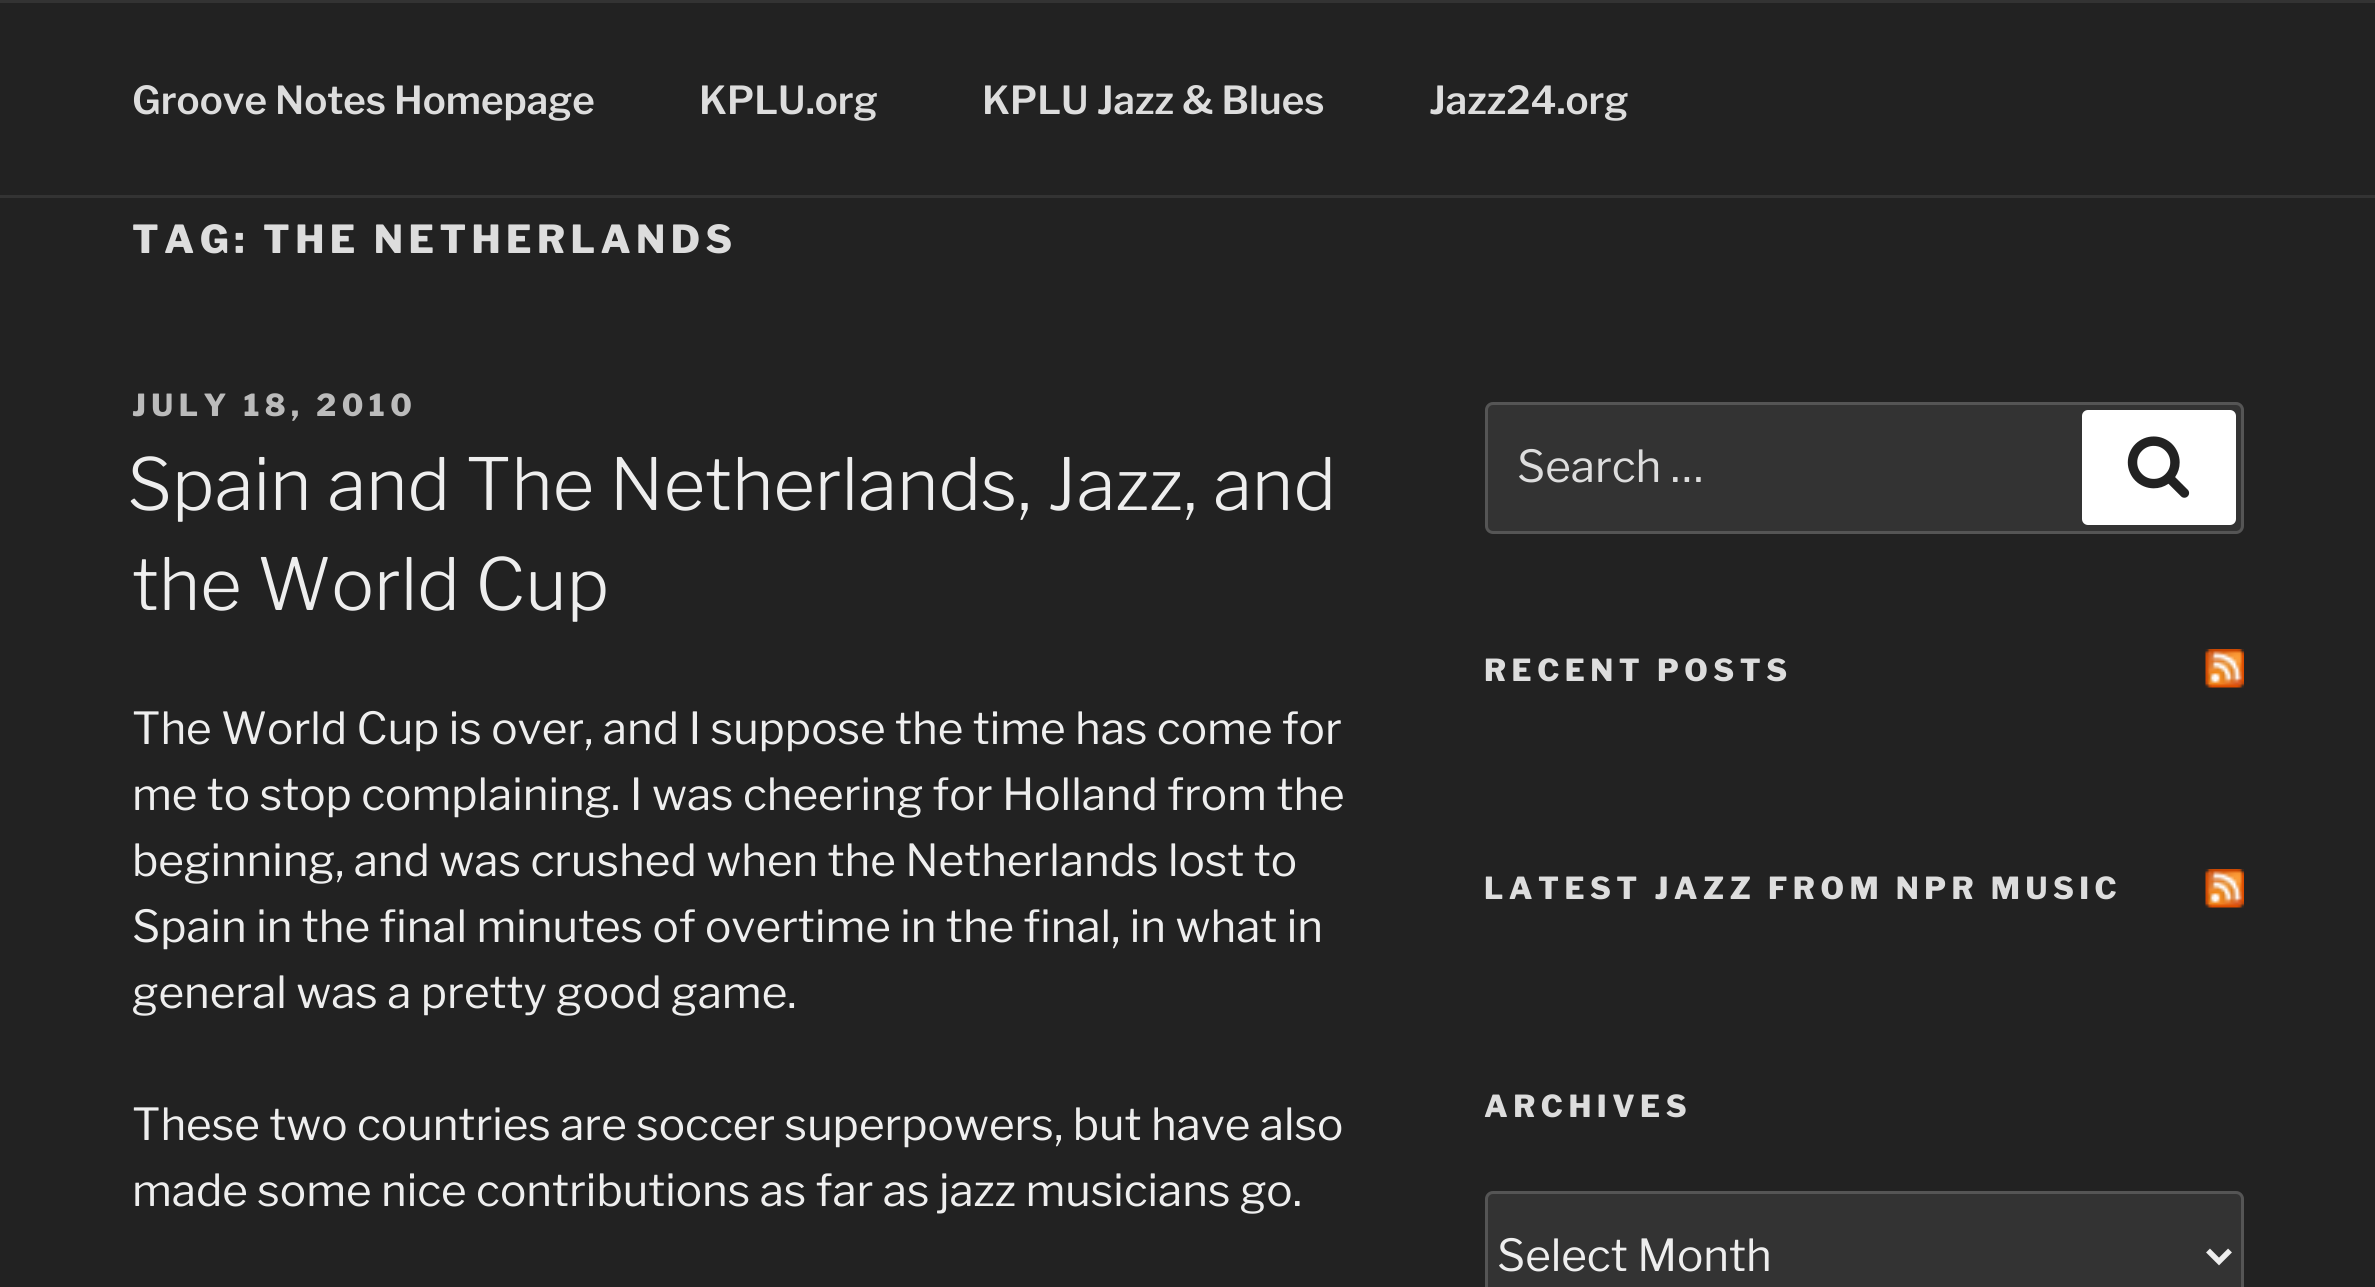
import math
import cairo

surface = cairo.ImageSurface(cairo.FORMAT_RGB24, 2375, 1287)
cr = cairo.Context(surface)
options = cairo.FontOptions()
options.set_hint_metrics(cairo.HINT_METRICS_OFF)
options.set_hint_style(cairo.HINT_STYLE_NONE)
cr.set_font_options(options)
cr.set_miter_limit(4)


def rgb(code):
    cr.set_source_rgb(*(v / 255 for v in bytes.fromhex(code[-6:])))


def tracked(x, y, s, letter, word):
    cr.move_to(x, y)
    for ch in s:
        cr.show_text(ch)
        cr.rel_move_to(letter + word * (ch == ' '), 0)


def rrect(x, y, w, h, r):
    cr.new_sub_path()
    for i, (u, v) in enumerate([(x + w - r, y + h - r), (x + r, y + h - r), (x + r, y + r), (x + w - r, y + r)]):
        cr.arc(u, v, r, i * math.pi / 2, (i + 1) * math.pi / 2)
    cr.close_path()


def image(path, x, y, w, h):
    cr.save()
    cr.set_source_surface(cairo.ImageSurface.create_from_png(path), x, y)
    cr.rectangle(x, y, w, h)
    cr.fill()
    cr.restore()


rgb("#222222")
cr.paint()
rgb("#333333")
cr.rectangle(0, 0, 2375, 3)
cr.fill()
cr.rectangle(0, 195, 2375, 3)
cr.fill()
rrect(1486.5, 403.5, 756, 129, 6.5)
cr.fill_preserve()
rgb("#555555")
cr.set_line_width(3)
cr.stroke()
rgb("#ffffff")
rrect(2082, 410, 154, 115, 6)
cr.fill()
image("img/1.png", 2127, 436, 63, 62)
image("img/2.png", 2205, 649, 39, 39)
image("img/2.png", 2205, 869, 39, 39)
rgb("#333333")
rrect(1486.5, 1192.5, 756, 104, 6.5)
cr.fill_preserve()
rgb("#555555")
cr.stroke()
cr.new_path()
cr.move_to(2208, 1250.5)
cr.line_to(2219, 1261.5)
cr.line_to(2230, 1250.5)
rgb("#eeeeee")
cr.set_line_width(5.5)
cr.stroke()
cr.select_font_face("Libre Franklin SemiBold")
cr.set_font_size(38.5)
rgb("#dddddd")
for x, y, s in [
    (132, 114, "Groove Notes Homepage"),
    (699, 114, "KPLU.org"),
    (982, 114, "KPLU Jazz & Blues"),
    (1429, 114, "Jazz24.org"),
]:
    cr.move_to(x, y)
    cr.show_text(s)
cr.select_font_face("Libre Franklin ExtraBold")
tracked(132, 253, "TAG: THE NETHERLANDS", 5.4, 0)
cr.set_font_size(30.25)
rgb("#bbbbbb")
tracked(132, 416, "JULY 18, 2010", 5.5, 0)
cr.select_font_face("Libre Franklin Light")
cr.set_font_size(71.5)
rgb("#eeeeee")
cr.move_to(127, 510)
cr.show_text("Spain and The Netherlands, Jazz, and")
cr.move_to(132, 610)
cr.show_text("the World Cup")
cr.select_font_face("Libre Franklin")
cr.set_font_size(44)
for x, y, s in [
    (132, 744, "The World Cup is over, and I suppose the time has come for"),
    (132, 810, "me to stop complaining. I was cheering for Holland from the"),
    (132, 876, "beginning, and was crushed when the Netherlands lost to"),
    (132, 942, "Spain in the final minutes of overtime in the final, in what in"),
    (132, 1008, "general was a pretty good game."),
    (132, 1140, "These two countries are soccer superpowers, but have also"),
    (132, 1206, "made some nice contributions as far as jazz musicians go."),
]:
    cr.move_to(x, y)
    cr.show_text(s)
rgb("#dddddd")
cr.move_to(1517, 482)
cr.show_text("Search …")
cr.select_font_face("Libre Franklin ExtraBold")
cr.set_font_size(30.25)
for x, y, s in [
    (1484, 681, "RECENT POSTS"),
    (1484, 899, "LATEST JAZZ FROM NPR MUSIC"),
    (1484, 1117, "ARCHIVES"),
]:
    tracked(x, y, s, 5.5, 0)
cr.select_font_face("Libre Franklin")
cr.set_font_size(44)
rgb("#eeeeee")
cr.move_to(1497, 1271)
cr.show_text("Select Month")
surface.write_to_png("page.png")
